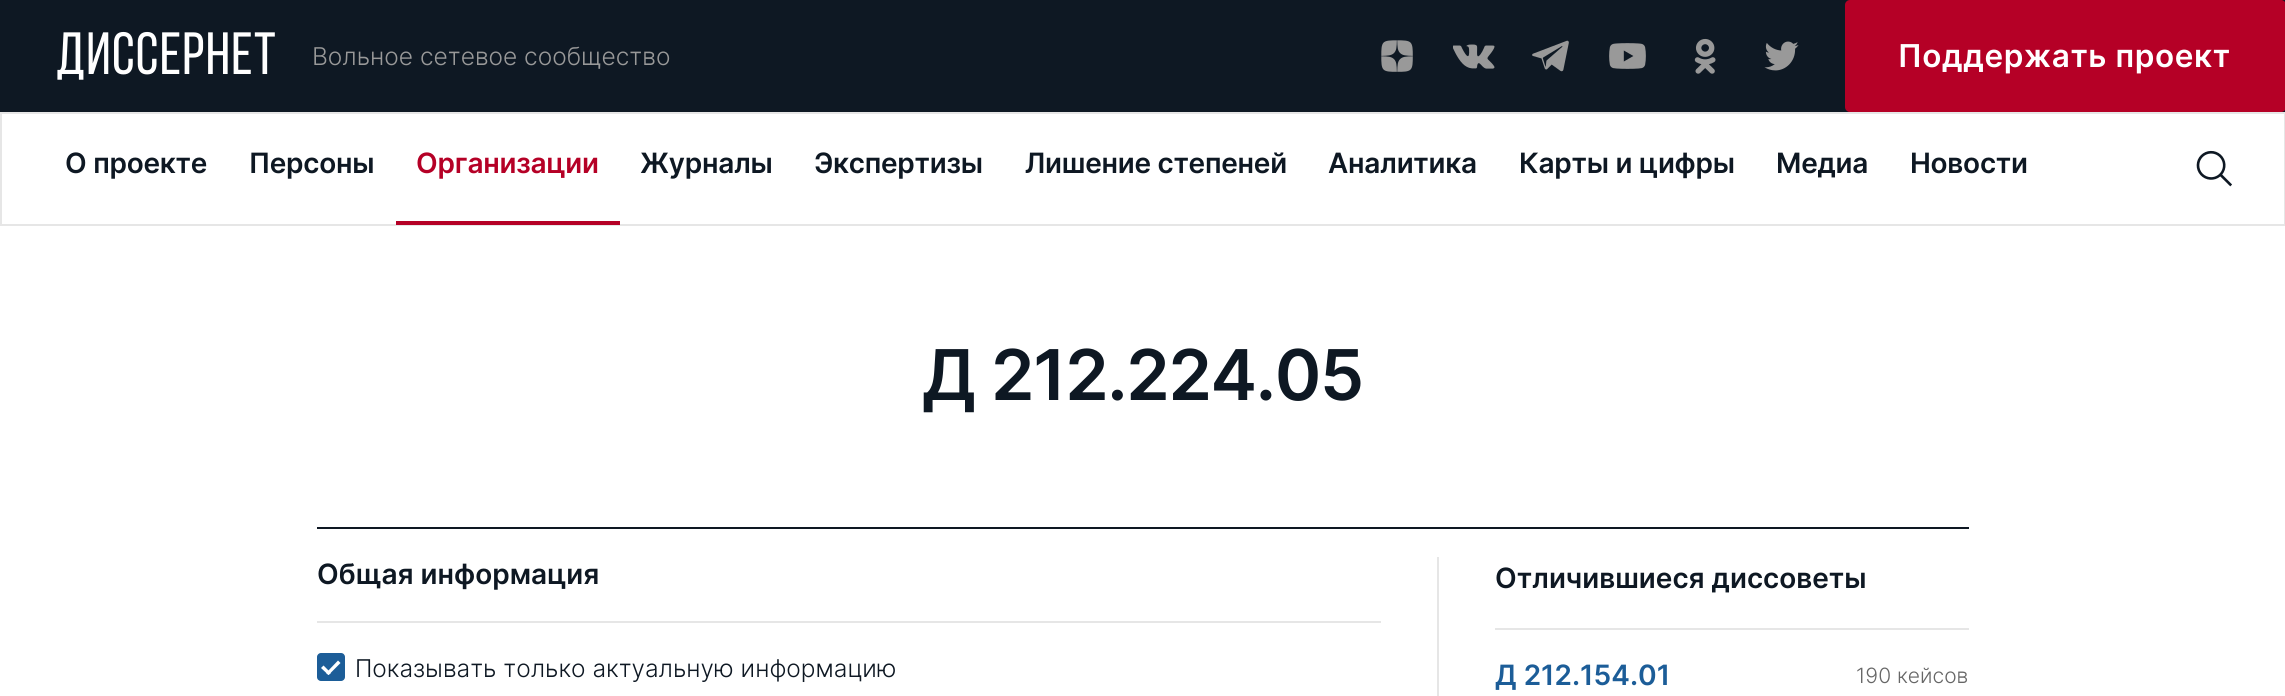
import math
import cairo

surface = cairo.ImageSurface(cairo.FORMAT_RGB24, 2285, 696)
cr = cairo.Context(surface)
options = cairo.FontOptions()
options.set_hint_metrics(cairo.HINT_METRICS_OFF)
options.set_hint_style(cairo.HINT_STYLE_NONE)
cr.set_font_options(options)
cr.set_miter_limit(4)


def rgb(code):
    cr.set_source_rgb(*(v / 255 for v in bytes.fromhex(code[-6:])))


def tracked(x, y, s, letter, word):
    cr.move_to(x, y)
    for ch in s:
        cr.show_text(ch)
        cr.rel_move_to(letter + word * (ch == ' '), 0)


def rrect(x, y, w, h, r):
    cr.new_sub_path()
    for i, (u, v) in enumerate([(x + w - r, y + h - r), (x + r, y + h - r), (x + r, y + r), (x + w - r, y + r)]):
        cr.arc(u, v, r, i * math.pi / 2, (i + 1) * math.pi / 2)
    cr.close_path()


def image(path, x, y, w, h):
    cr.save()
    cr.set_source_surface(cairo.ImageSurface.create_from_png(path), x, y)
    cr.rectangle(x, y, w, h)
    cr.fill()
    cr.restore()


rgb("#ffffff")
cr.paint()
rgb("#0e1823")
cr.rectangle(0, 0, 2285, 112)
cr.fill()
image("img/1.png", 1381, 40, 32, 32)
image("img/2.png", 1453, 44, 42, 25)
image("img/3.png", 1532, 40, 37, 32)
image("img/4.png", 1609, 43, 37, 26)
image("img/5.png", 1694, 38, 22, 36)
image("img/6.png", 1764, 41, 35, 30)
rgb("#b50026")
rrect(1845, 0, 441, 112, 5)
cr.fill()
cr.rectangle(1, 113, 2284, 112)
rgb("#e6e6e6")
cr.stroke()
rgb("#b50026")
cr.rectangle(396, 221, 224, 4)
cr.fill()
image("img/7.png", 2196, 150, 36, 37)
rgb("#0e1823")
cr.rectangle(317, 527, 1652, 2)
cr.fill()
rgb("#e6e6e6")
cr.rectangle(317, 621, 1064, 2)
cr.fill()
rgb("#1c5d98")
rrect(317, 653, 28, 28, 4)
cr.fill()
rgb("#ffffff")
cr.new_path()
cr.move_to(338, 660.5)
cr.line_to(340.5, 663)
cr.line_to(328.5, 675)
cr.line_to(326, 673)
cr.close_path()
cr.fill()
cr.new_path()
cr.move_to(323.5, 665.5)
cr.line_to(331, 673)
cr.line_to(328.5, 675)
cr.line_to(321, 668)
cr.close_path()
cr.fill()
rgb("#e6e6e6")
cr.rectangle(1437, 557, 2, 139)
cr.fill()
cr.rectangle(1495, 628, 474, 2)
cr.fill()
cr.select_font_face("Bebas Neue")
cr.set_font_size(59.5)
rgb("#ffffff")
tracked(56, 74, "ДИССЕРНЕТ", 1.25, 0)
cr.select_font_face("Inter Light")
cr.set_font_size(24.5)
rgb("#999999")
cr.move_to(312, 65)
cr.show_text("Вольное сетевое сообщество")
cr.select_font_face("Inter SemiBold")
cr.set_font_size(31.5)
rgb("#ffffff")
tracked(1898, 67, "Поддержать проект", 0.6, 0)
cr.set_font_size(28)
rgb("#0e1823")
tracked(65, 173, "О проекте", -0.25, 0)
tracked(249, 173, "Персоны", -0.25, 0)
rgb("#b50026")
tracked(416, 173, "Организации", -0.25, 0)
rgb("#0e1823")
for x, y, s in [
    (640, 173, "Журналы"),
    (814, 173, "Экспертизы"),
    (1025, 173, "Лишение степеней"),
    (1328, 173, "Аналитика"),
    (1519, 173, "Карты и цифры"),
    (1776, 173, "Медиа"),
    (1910, 173, "Новости"),
]:
    tracked(x, y, s, -0.25, 0)
cr.set_font_size(70)
tracked(922, 400, "Д 212.224.05", -1.4, 0)
cr.set_font_size(28)
cr.move_to(317, 584)
cr.show_text("Общая информация")
cr.select_font_face("Inter Light")
cr.set_font_size(24.5)
cr.move_to(355, 677)
cr.show_text("Показывать только актуальную информацию")
cr.select_font_face("Inter SemiBold")
cr.set_font_size(28)
cr.move_to(1495, 588)
cr.show_text("Отличившиеся диссоветы")
rgb("#1c5d98")
cr.move_to(1495, 685)
cr.show_text("Д 212.154.01")
cr.select_font_face("Inter Light")
cr.set_font_size(21)
rgb("#666666")
cr.move_to(1856, 683)
cr.show_text("190 кейсов")
surface.write_to_png("page.png")
